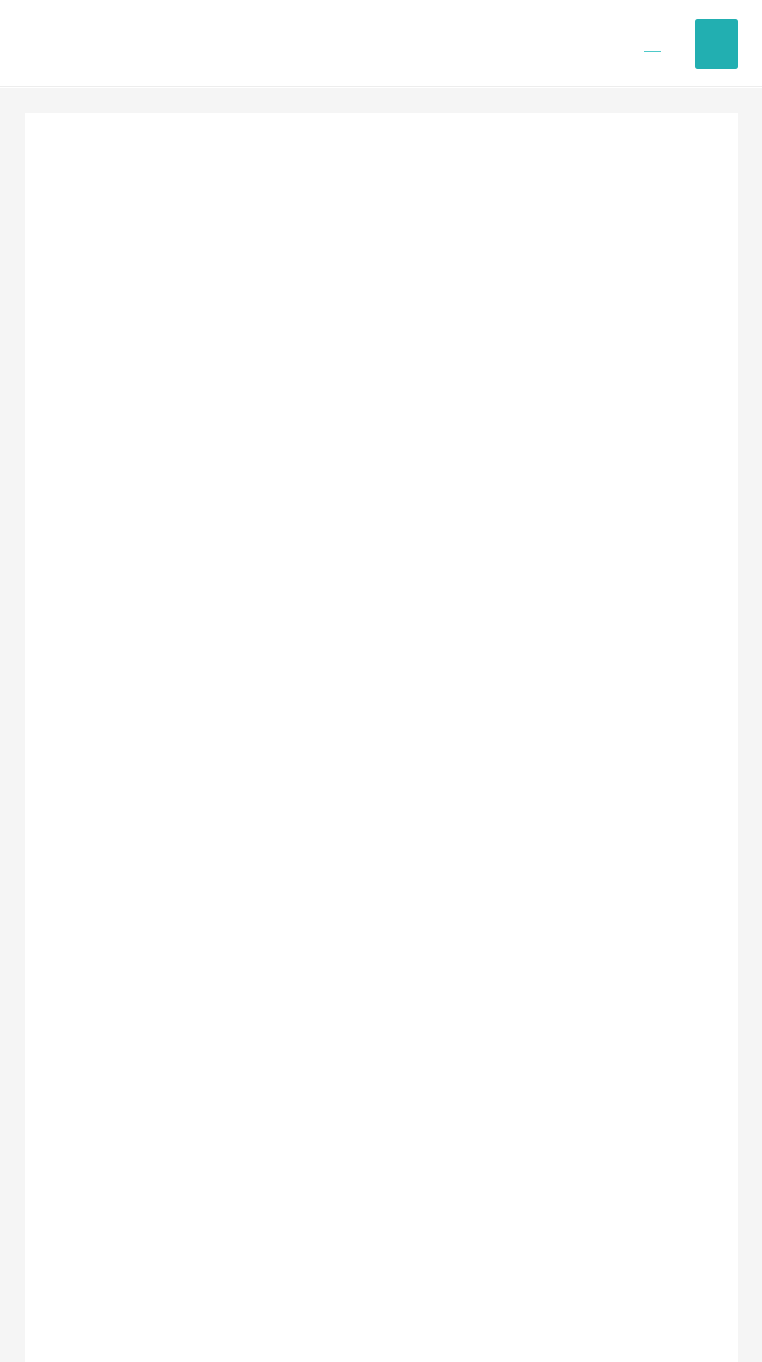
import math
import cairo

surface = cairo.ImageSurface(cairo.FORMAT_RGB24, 762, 1362)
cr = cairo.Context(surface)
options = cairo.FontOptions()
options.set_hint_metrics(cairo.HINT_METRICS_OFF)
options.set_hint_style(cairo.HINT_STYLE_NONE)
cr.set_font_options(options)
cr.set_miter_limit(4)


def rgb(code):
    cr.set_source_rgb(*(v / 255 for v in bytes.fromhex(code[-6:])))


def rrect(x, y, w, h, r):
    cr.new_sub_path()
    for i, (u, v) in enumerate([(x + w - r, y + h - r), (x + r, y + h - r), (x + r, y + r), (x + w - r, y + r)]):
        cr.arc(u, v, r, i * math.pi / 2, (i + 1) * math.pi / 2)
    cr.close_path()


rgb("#f5f5f5")
cr.paint()
for x, y, w, h, color in [
    (0, 0, 762, 88, "#ffffff"),
    (0, 86, 762, 1, "#ededed"),
    (644, 51, 17, 1, "#4ec9c9"),
]:
    rgb(color)
    cr.rectangle(x, y, w, h)
    cr.fill()
rgb("#22afb1")
rrect(695, 19, 43, 50, 2.5)
cr.fill()
rgb("#ffffff")
cr.rectangle(25, 113, 713, 1249)
cr.fill()
surface.write_to_png("page.png")
